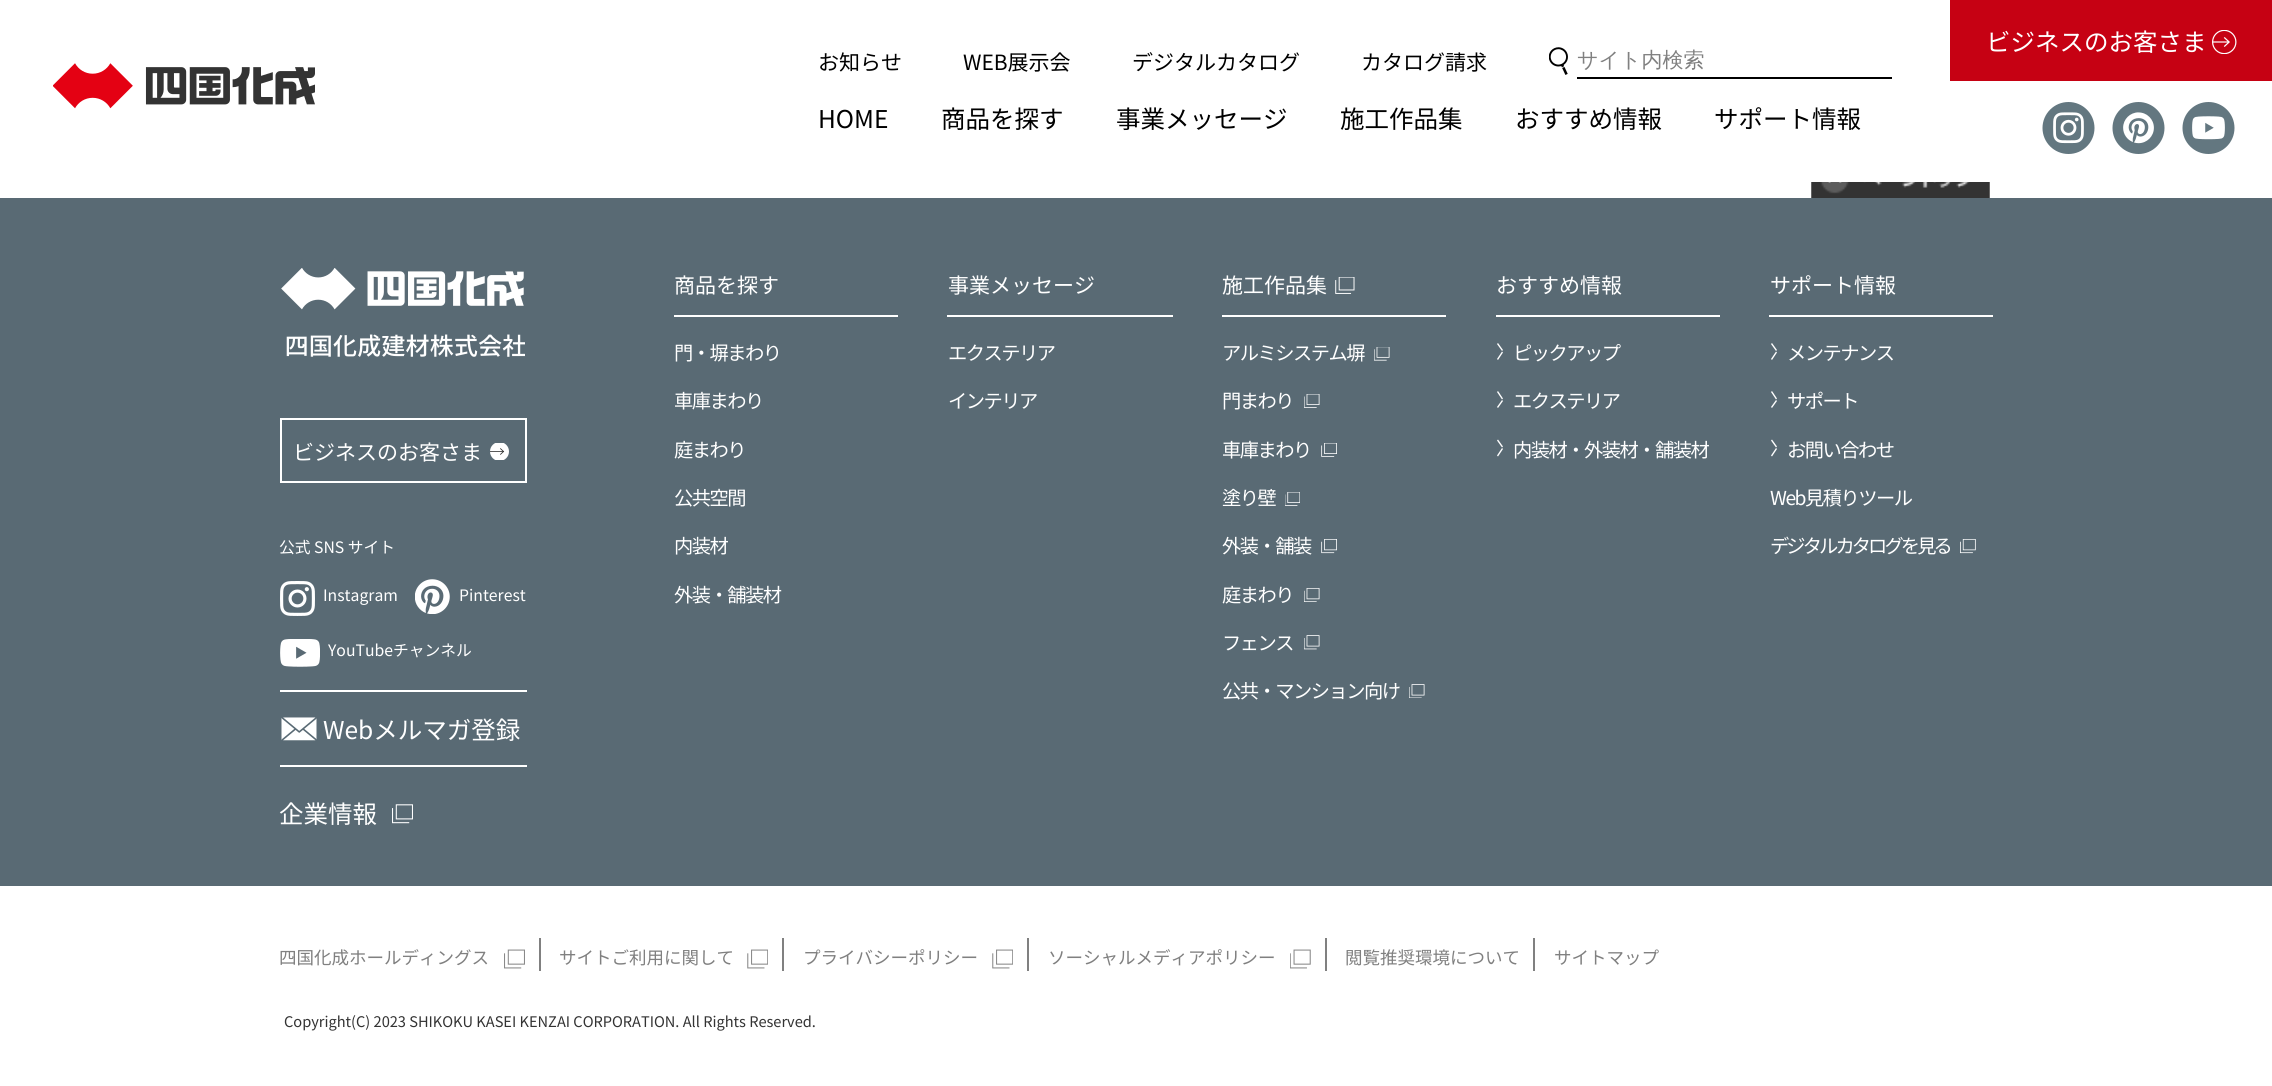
import math
import cairo

surface = cairo.ImageSurface(cairo.FORMAT_RGB24, 2272, 1086)
cr = cairo.Context(surface)
options = cairo.FontOptions()
options.set_hint_metrics(cairo.HINT_METRICS_OFF)
options.set_hint_style(cairo.HINT_STYLE_NONE)
cr.set_font_options(options)
cr.set_miter_limit(4)


def rgb(code):
    cr.set_source_rgb(*(v / 255 for v in bytes.fromhex(code[-6:])))


def tracked(x, y, s, letter, word):
    cr.move_to(x, y)
    for ch in s:
        cr.show_text(ch)
        cr.rel_move_to(letter + word * (ch == ' '), 0)


def image(path, x, y, w, h):
    cr.save()
    cr.set_source_surface(cairo.ImageSurface.create_from_png(path), x, y)
    cr.rectangle(x, y, w, h)
    cr.fill()
    cr.restore()


rgb("#ffffff")
cr.paint()
image("img/1.png", 53, 63, 262, 46)
rgb("#c60113")
cr.rectangle(1950, 0, 322, 81)
cr.fill()
image("img/2.png", 2212, 30, 25, 24)
image("img/3.png", 2042, 102, 53, 52)
image("img/4.png", 2112, 102, 53, 52)
image("img/5.png", 2182, 102, 53, 52)
image("img/6.png", 1549, 47, 19, 28)
rgb("#000000")
cr.rectangle(1577, 77, 315, 2)
cr.fill()
image("img/7.png", 1811, 182, 179, 16)
rgb("#596a74")
cr.rectangle(0, 198, 2272, 688)
cr.fill()
image("img/8.png", 281, 268, 244, 89)
cr.rectangle(281, 419, 245, 63)
rgb("#ffffff")
cr.stroke()
image("img/9.png", 490, 443, 19, 17)
image("img/10.png", 280, 581, 35, 35)
image("img/11.png", 415, 579, 35, 35)
image("img/12.png", 280, 639, 40, 28)
cr.rectangle(280, 690, 247, 2)
cr.fill()
cr.rectangle(280, 765, 247, 2)
cr.fill()
image("img/13.png", 281, 717, 36, 24)
image("img/14.png", 392, 804, 21, 20)
for x, y, w, h, color in [
    (674, 315, 224, 2, "#ffffff"),
    (947, 315, 226, 2, "#ffffff"),
    (1222, 315, 224, 2, "#ffffff"),
]:
    rgb(color)
    cr.rectangle(x, y, w, h)
    cr.fill()
image("img/15.png", 1335, 277, 20, 17)
image("img/16.png", 1374, 347, 16, 14)
image("img/17.png", 1304, 394, 16, 14)
image("img/18.png", 1321, 443, 16, 14)
image("img/19.png", 1285, 492, 15, 14)
image("img/20.png", 1321, 539, 16, 15)
image("img/21.png", 1304, 588, 16, 14)
image("img/22.png", 1304, 635, 16, 15)
image("img/23.png", 1409, 684, 16, 14)
cr.rectangle(1496, 315, 224, 2)
cr.fill()
cr.new_path()
cr.move_to(1498, 343)
cr.line_to(1503, 350)
cr.line_to(1502, 351)
cr.line_to(1497, 344)
cr.close_path()
cr.move_to(1497, 359)
cr.line_to(1502, 351.5)
cr.line_to(1503, 352.5)
cr.line_to(1498, 360)
cr.close_path()
cr.fill()
cr.new_path()
cr.move_to(1498, 391)
cr.line_to(1503, 398.5)
cr.line_to(1502, 399.5)
cr.line_to(1497, 392)
cr.close_path()
cr.move_to(1497, 407)
cr.line_to(1502, 400)
cr.line_to(1503, 401)
cr.line_to(1498, 408)
cr.close_path()
cr.fill()
cr.new_path()
cr.move_to(1498, 439.5)
cr.line_to(1503, 446.5)
cr.line_to(1502, 447.5)
cr.line_to(1497, 440.5)
cr.close_path()
cr.move_to(1497, 455.5)
cr.line_to(1502, 448)
cr.line_to(1503, 449)
cr.line_to(1498, 456.5)
cr.close_path()
cr.fill()
cr.rectangle(1769, 315, 224, 2)
cr.fill()
cr.new_path()
cr.move_to(1772, 343)
cr.line_to(1777, 350)
cr.line_to(1776, 351)
cr.line_to(1771, 344)
cr.close_path()
cr.move_to(1771, 359)
cr.line_to(1776, 351.5)
cr.line_to(1777, 352.5)
cr.line_to(1772, 360)
cr.close_path()
cr.fill()
cr.new_path()
cr.move_to(1772, 391)
cr.line_to(1777, 398.5)
cr.line_to(1776, 399.5)
cr.line_to(1771, 392)
cr.close_path()
cr.move_to(1771, 407)
cr.line_to(1776, 400)
cr.line_to(1777, 401)
cr.line_to(1772, 408)
cr.close_path()
cr.fill()
cr.new_path()
cr.move_to(1772, 439.5)
cr.line_to(1777, 446.5)
cr.line_to(1776, 447.5)
cr.line_to(1771, 440.5)
cr.close_path()
cr.move_to(1771, 455.5)
cr.line_to(1776, 448)
cr.line_to(1777, 449)
cr.line_to(1772, 456.5)
cr.close_path()
cr.fill()
image("img/24.png", 1960, 539, 16, 15)
rgb("#808080")
cr.rectangle(539, 938, 2, 33)
cr.fill()
image("img/25.png", 504, 949, 21, 20)
cr.rectangle(782, 938, 2, 33)
cr.fill()
image("img/26.png", 747, 949, 21, 20)
cr.rectangle(1027, 938, 2, 33)
cr.fill()
image("img/26.png", 992, 949, 21, 20)
cr.rectangle(1325, 938, 2, 33)
cr.fill()
image("img/27.png", 1290, 949, 21, 20)
cr.rectangle(1533, 938, 2, 33)
cr.fill()
cr.select_font_face("Noto Sans JP")
cr.set_font_size(24.5)
rgb("#ffffff")
cr.move_to(1986, 51)
cr.show_text("ビジネスのお客さま")
cr.set_font_size(21)
rgb("#000000")
for x, y, s in [
    (818, 70, "お知らせ"),
    (963, 70, "WEB展示会"),
    (1132, 70, "デジタルカタログ"),
    (1361, 70, "カタログ請求"),
]:
    cr.move_to(x, y)
    cr.show_text(s)
cr.select_font_face("WenQuanYi Zen Hei Medium")
rgb("#808080")
cr.move_to(1577, 67)
cr.show_text("サイト内検索")
cr.select_font_face("Noto Sans JP")
cr.set_font_size(24.5)
rgb("#000000")
for x, y, s in [
    (818, 128, "HOME"),
    (941, 128, "商品を探す"),
    (1116, 128, "事業メッセージ"),
    (1340, 128, "施工作品集"),
    (1515, 128, "おすすめ情報"),
    (1714, 128, "サポート情報"),
]:
    cr.move_to(x, y)
    cr.show_text(s)
cr.set_font_size(21)
rgb("#ffffff")
cr.move_to(293, 460)
cr.show_text("ビジネスのお客さま")
cr.set_font_size(15.75)
for x, y, s in [
    (279, 553, "公式 SNS サイト"),
    (323, 601, "Instagram"),
    (459, 601, "Pinterest"),
    (328, 656, "YouTubeチャンネル"),
]:
    cr.move_to(x, y)
    cr.show_text(s)
cr.set_font_size(24.5)
cr.move_to(323, 739)
cr.show_text("Webメルマガ登録")
cr.move_to(279, 823)
cr.show_text("企業情報")
cr.set_font_size(21)
cr.move_to(674, 293)
cr.show_text("商品を探す")
cr.set_font_size(19.25)
for x, y, s in [
    (674, 360, "門・塀まわり"),
    (674, 408, "車庫まわり"),
    (674, 457, "庭まわり"),
    (674, 505, "公共空間"),
    (674, 553, "内装材"),
    (674, 602, "外装・舗装材"),
]:
    tracked(x, y, s, -1.5, 0)
cr.set_font_size(21)
cr.move_to(948, 293)
cr.show_text("事業メッセージ")
cr.set_font_size(19.25)
tracked(948, 360, "エクステリア", -1.5, 0)
tracked(948, 408, "インテリア", -1.5, 0)
cr.set_font_size(21)
cr.move_to(1222, 293)
cr.show_text("施工作品集")
cr.set_font_size(19.25)
for x, y, s in [
    (1222, 360, "アルミシステム塀"),
    (1222, 408, "門まわり"),
    (1222, 457, "車庫まわり"),
    (1222, 505, "塗り壁"),
    (1222, 553, "外装・舗装"),
    (1222, 602, "庭まわり"),
    (1222, 650, "フェンス"),
    (1222, 698, "公共・マンション向け"),
]:
    tracked(x, y, s, -1.5, 0)
cr.set_font_size(21)
cr.move_to(1496, 293)
cr.show_text("おすすめ情報")
cr.set_font_size(19.25)
for x, y, s in [
    (1513, 360, "ピックアップ"),
    (1513, 408, "エクステリア"),
    (1513, 457, "内装材・外装材・舗装材"),
]:
    tracked(x, y, s, -1.5, 0)
cr.set_font_size(21)
cr.move_to(1770, 293)
cr.show_text("サポート情報")
cr.set_font_size(19.25)
for x, y, s in [
    (1787, 360, "メンテナンス"),
    (1787, 408, "サポート"),
    (1787, 457, "お問い合わせ"),
    (1770, 505, "Web見積りツール"),
]:
    tracked(x, y, s, -1.5, 0)
tracked(1770, 553, "デジタルカタログを見る", -2.9, 0)
cr.set_font_size(17.5)
rgb("#808080")
for x, y, s in [
    (279, 964, "四国化成ホールディングス"),
    (559, 964, "サイトご利用に関して"),
    (803, 964, "プライバシーポリシー"),
    (1048, 964, "ソーシャルメディアポリシー"),
    (1345, 964, "閲覧推奨環境について"),
    (1554, 964, "サイトマップ"),
]:
    cr.move_to(x, y)
    cr.show_text(s)
cr.set_font_size(14.6)
rgb("#333333")
cr.move_to(284, 1027)
cr.show_text("Copyright(C) 2023 SHIKOKU KASEI KENZAI CORPORATION. All Rights Reserved.")
surface.write_to_png("page.png")
